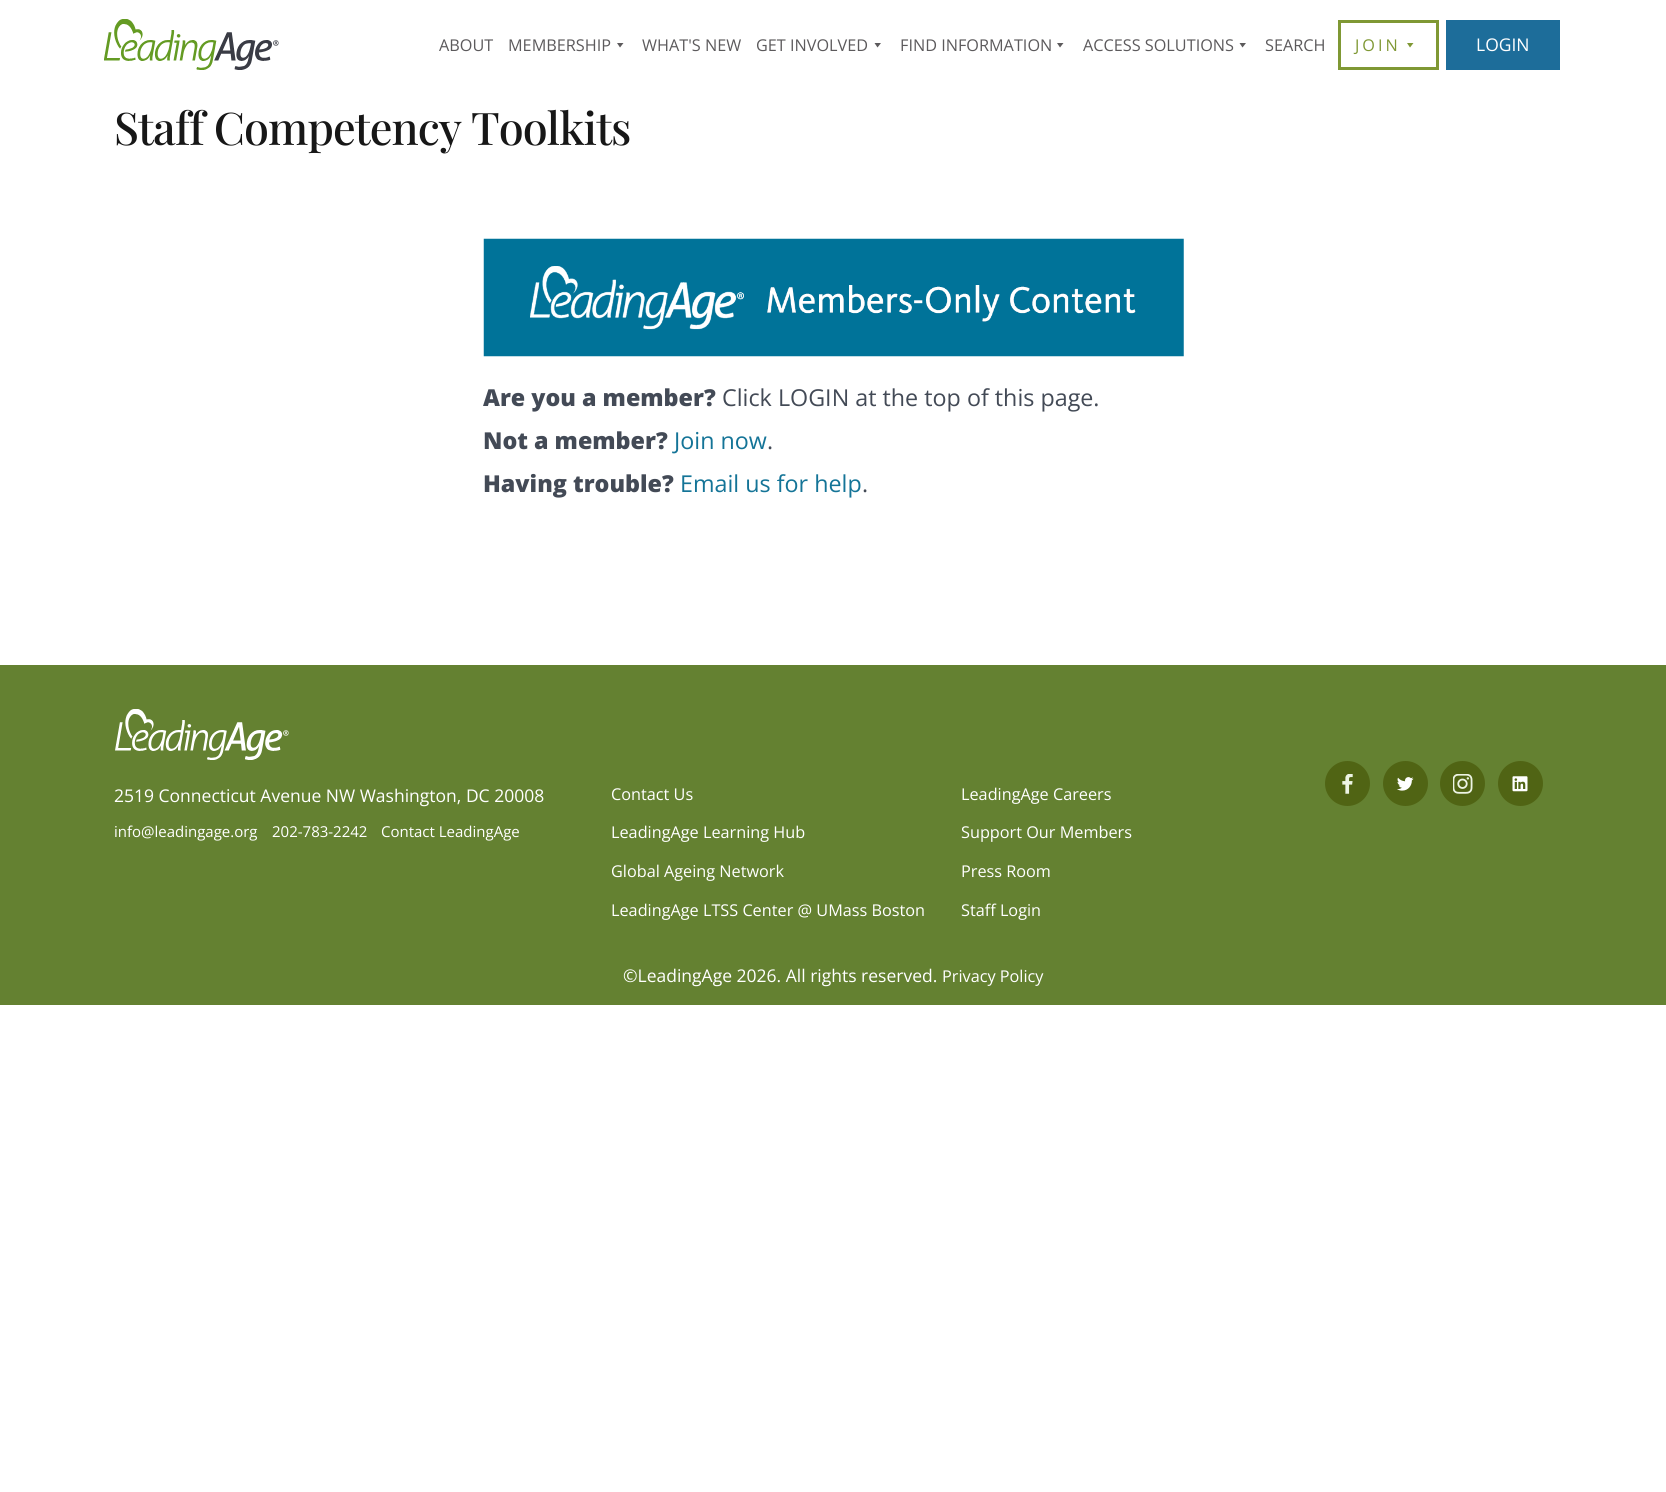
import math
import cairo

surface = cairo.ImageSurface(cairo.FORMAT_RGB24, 1666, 1492)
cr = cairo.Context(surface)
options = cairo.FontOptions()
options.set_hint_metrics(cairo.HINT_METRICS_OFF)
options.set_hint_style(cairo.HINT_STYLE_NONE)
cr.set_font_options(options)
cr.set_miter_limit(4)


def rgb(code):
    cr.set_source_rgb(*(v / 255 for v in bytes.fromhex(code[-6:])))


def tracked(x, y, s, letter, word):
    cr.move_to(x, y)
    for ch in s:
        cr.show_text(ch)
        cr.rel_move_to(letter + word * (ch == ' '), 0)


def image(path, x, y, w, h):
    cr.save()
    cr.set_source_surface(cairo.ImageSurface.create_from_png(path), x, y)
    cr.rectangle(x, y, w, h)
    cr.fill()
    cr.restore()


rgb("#ffffff")
cr.paint()
image("img/1.png", 104, 19, 175, 51)
rgb("#5c5a5c")
cr.new_path()
cr.move_to(623.5, 43)
cr.line_to(620, 47.5)
cr.line_to(617, 43)
cr.close_path()
cr.fill()
cr.new_path()
cr.move_to(881, 43)
cr.line_to(877.5, 47.5)
cr.line_to(874.5, 43)
cr.close_path()
cr.fill()
cr.new_path()
cr.move_to(1063.5, 43)
cr.line_to(1060, 47.5)
cr.line_to(1057, 43)
cr.close_path()
cr.fill()
cr.new_path()
cr.move_to(1246, 43)
cr.line_to(1242.5, 47.5)
cr.line_to(1239.5, 43)
cr.close_path()
cr.fill()
cr.rectangle(1339.5, 21.5, 98, 47)
rgb("#7f9834")
cr.set_line_width(3)
cr.stroke()
cr.new_path()
cr.move_to(1413.5, 43)
cr.line_to(1410, 47.5)
cr.line_to(1407, 43)
cr.close_path()
cr.fill()
rgb("#1d6d9a")
cr.rectangle(1446, 20, 114, 50)
cr.fill()
image("img/2.png", 483, 238, 701, 119)
rgb("#648131")
cr.rectangle(0, 665, 1666, 340)
cr.fill()
image("img/3.png", 115, 709, 174, 51)
rgb("#506414")
cr.arc(1347.5, 783.5, 22.5, 0, 2 * math.pi)
cr.fill()
image("img/4.png", 1342, 774, 11, 20)
cr.arc(1405.5, 783.5, 22.5, 0, 2 * math.pi)
cr.fill()
image("img/5.png", 1397, 777, 17, 14)
cr.arc(1462.5, 783.5, 22.5, 0, 2 * math.pi)
cr.fill()
image("img/6.png", 1453, 774, 20, 20)
cr.arc(1520.5, 783.5, 22.5, 0, 2 * math.pi)
cr.fill()
image("img/7.png", 1512, 776, 16, 16)
cr.select_font_face("Open Sans")
cr.set_font_size(16.25)
rgb("#5c5a5c")
for x, y, s in [
    (439, 51, "ABOUT"),
    (508, 51, "MEMBERSHIP"),
    (642, 51, "WHAT'S NEW"),
    (756, 51, "GET INVOLVED"),
    (900, 51, "FIND INFORMATION"),
    (1083, 51, "ACCESS SOLUTIONS"),
    (1265, 51, "SEARCH"),
]:
    cr.move_to(x, y)
    cr.show_text(s)
rgb("#7f9834")
tracked(1355, 51, "JOIN", 3, 0)
cr.set_font_size(17.5)
rgb("#ffffff")
cr.move_to(1476, 51)
cr.show_text("LOGIN")
cr.select_font_face("Playfair Display Medium")
cr.set_font_size(45)
rgb("#171717")
tracked(114, 145, "Staff Competency Toolkits", -0.9, 0)
cr.select_font_face("Open Sans ExtraBold")
cr.set_font_size(23.3)
rgb("#434a56")
cr.move_to(483, 406)
cr.show_text("Are you a member?")
cr.select_font_face("Open Sans")
cr.move_to(722, 406)
cr.show_text("Click LOGIN at the top of this page.")
cr.select_font_face("Open Sans ExtraBold")
cr.move_to(483, 449)
cr.show_text("Not a member?")
cr.select_font_face("Open Sans")
rgb("#147497")
cr.move_to(674, 449)
cr.show_text("Join now")
rgb("#434a56")
cr.move_to(767, 449)
cr.show_text(".")
cr.select_font_face("Open Sans ExtraBold")
cr.move_to(483, 492)
cr.show_text("Having trouble?")
cr.select_font_face("Open Sans")
rgb("#147497")
cr.move_to(680, 492)
cr.show_text("Email us for help")
rgb("#434a56")
cr.move_to(862, 492)
cr.show_text(".")
cr.set_font_size(17.5)
rgb("#ffffff")
cr.move_to(114, 802)
cr.show_text("2519 Connecticut Avenue NW Washington, DC 20008")
cr.set_font_size(15)
for x, y, s in [
    (114, 837, "info@leadingage.org"),
    (272, 837, "202-783-2242"),
    (381, 837, "Contact LeadingAge"),
]:
    cr.move_to(x, y)
    cr.show_text(s)
cr.set_font_size(16.25)
for x, y, s in [
    (611, 800, "Contact Us"),
    (961, 800, "LeadingAge Careers"),
    (611, 838, "LeadingAge Learning Hub"),
    (961, 838, "Support Our Members"),
    (611, 877, "Global Ageing Network"),
    (961, 877, "Press Room"),
    (611, 916, "LeadingAge LTSS Center @ UMass Boston"),
    (961, 916, "Staff Login"),
]:
    cr.move_to(x, y)
    cr.show_text(s)
cr.set_font_size(17.5)
cr.move_to(623, 982)
cr.show_text("©LeadingAge 2026. All rights reserved.")
cr.set_font_size(16.25)
cr.move_to(942, 982)
cr.show_text("Privacy Policy")
surface.write_to_png("page.png")
